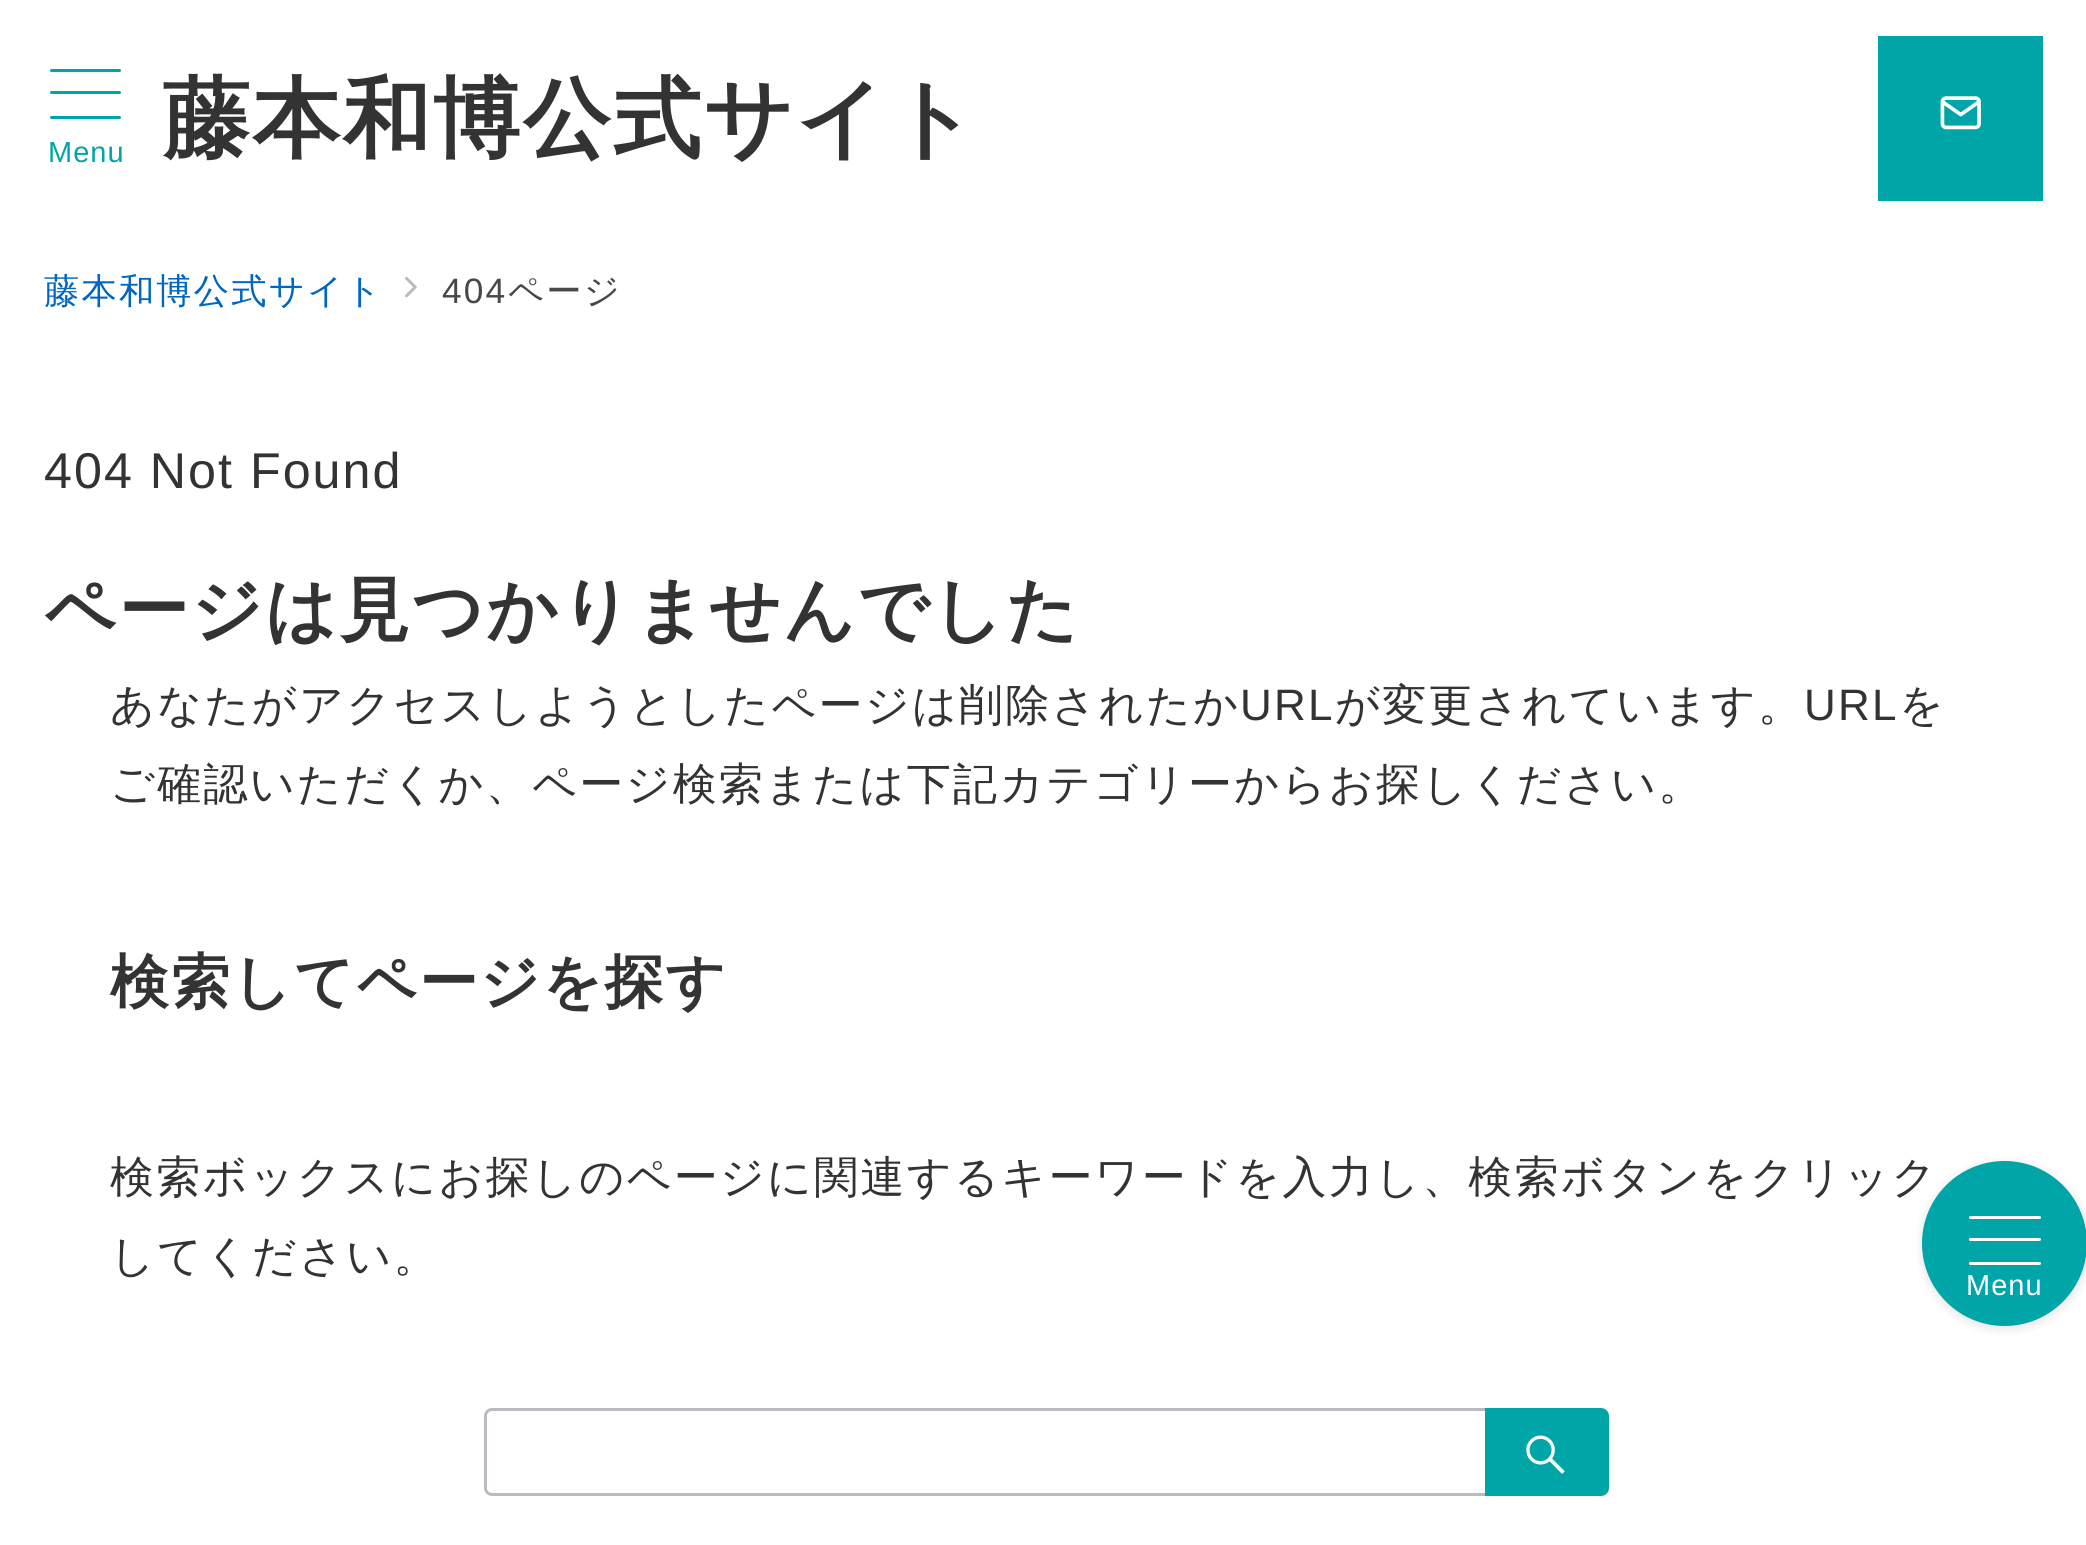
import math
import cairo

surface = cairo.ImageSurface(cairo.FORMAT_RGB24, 2086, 1545)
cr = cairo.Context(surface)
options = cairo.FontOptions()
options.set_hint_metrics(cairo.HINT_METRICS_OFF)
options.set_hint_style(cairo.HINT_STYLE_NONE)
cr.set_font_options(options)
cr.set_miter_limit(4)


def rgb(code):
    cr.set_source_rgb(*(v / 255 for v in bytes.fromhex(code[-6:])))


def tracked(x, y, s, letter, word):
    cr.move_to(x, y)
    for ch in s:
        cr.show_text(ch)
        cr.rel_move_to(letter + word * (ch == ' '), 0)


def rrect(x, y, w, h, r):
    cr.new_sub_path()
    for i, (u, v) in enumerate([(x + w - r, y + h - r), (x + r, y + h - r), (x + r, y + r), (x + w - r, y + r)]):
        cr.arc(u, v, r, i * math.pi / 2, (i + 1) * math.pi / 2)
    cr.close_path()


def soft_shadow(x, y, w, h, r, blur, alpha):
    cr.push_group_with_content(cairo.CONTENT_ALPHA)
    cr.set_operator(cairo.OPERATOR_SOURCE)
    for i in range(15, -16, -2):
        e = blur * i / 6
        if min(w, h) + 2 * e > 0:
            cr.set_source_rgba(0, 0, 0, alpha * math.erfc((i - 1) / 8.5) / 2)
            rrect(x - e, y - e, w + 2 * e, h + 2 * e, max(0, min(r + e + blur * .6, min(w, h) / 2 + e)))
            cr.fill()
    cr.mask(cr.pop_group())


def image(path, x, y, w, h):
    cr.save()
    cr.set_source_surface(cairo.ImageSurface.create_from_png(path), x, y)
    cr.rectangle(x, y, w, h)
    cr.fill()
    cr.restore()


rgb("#ffffff")
cr.paint()
rgb("#00a5a8")
rrect(50, 69, 71, 3, 1.5)
cr.fill()
rrect(50, 91, 71, 3, 1.5)
cr.fill()
rrect(50, 116, 71, 3, 1.5)
cr.fill()
cr.rectangle(1878, 36, 165, 165)
cr.fill()
image("img/1.png", 1940, 96, 41, 34)
image("img/2.png", 405, 276, 12, 22)
rrect(485.5, 1409.5, 1116, 85, 6.5)
rgb("#b8bcc0")
cr.set_line_width(3)
cr.stroke()
rgb("#00a5a8")
cr.new_path()
cr.move_to(1486.5, 1409.5)
cr.line_to(1601, 1409.5)
cr.curve_to(1604.5, 1409.5, 1607.5, 1412.5, 1607.5, 1416)
cr.line_to(1607.5, 1488)
cr.curve_to(1607.5, 1491.5, 1604.5, 1494.5, 1601, 1494.5)
cr.line_to(1486.5, 1494.5)
cr.close_path()
cr.fill_preserve()
cr.stroke()
image("img/3.png", 1526, 1435, 39, 39)
rgb("#000000")
soft_shadow(1920, 1161, 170, 170, 85, 4, 0.08)
cr.select_font_face("Liberation Sans")
cr.set_font_size(29)
rgb("#00a5a8")
tracked(48, 162, "Menu", 1, 0)
cr.select_font_face("WenQuanYi Zen Hei", cairo.FONT_SLANT_NORMAL, cairo.FONT_WEIGHT_BOLD)
cr.set_font_size(88)
rgb("#333333")
tracked(162, 149, "藤本和博公式サイト", 2.2, 0)
cr.select_font_face("WenQuanYi Zen Hei Medium")
cr.set_font_size(35.25)
rgb("#0066c0")
tracked(44, 303, "藤本和博公式サイト", 2.2, 0)
cr.select_font_face("Liberation Sans")
rgb("#484848")
tracked(442, 303, "404", 2.2, 0)
cr.select_font_face("WenQuanYi Zen Hei Medium")
tracked(508, 303, "ページ", 2.2, 0)
cr.select_font_face("Liberation Sans")
cr.set_font_size(50.25)
rgb("#333333")
tracked(44, 488, "404 Not Found", 2, 0)
cr.select_font_face("WenQuanYi Zen Hei", cairo.FONT_SLANT_NORMAL, cairo.FONT_WEIGHT_BOLD)
cr.set_font_size(70.4)
tracked(44, 634, "ページは見つかりませんでした", 2.2, 0)
cr.select_font_face("WenQuanYi Zen Hei Medium")
cr.set_font_size(44)
tracked(110, 720, "あなたがアクセスしようとしたページは削除されたか", 2.2, 0)
cr.select_font_face("Liberation Sans")
tracked(1240, 720, "URL", 2.2, 0)
cr.select_font_face("WenQuanYi Zen Hei Medium")
tracked(1335, 720, "が変更されています。", 2.2, 0)
cr.select_font_face("Liberation Sans")
tracked(1804, 720, "URL", 2.2, 0)
cr.select_font_face("WenQuanYi Zen Hei Medium")
tracked(1899, 720, "を", 2.2, 0)
tracked(110, 799, "ご確認いただくか、ページ検索または下記カテゴリーからお探しください。", 2.2, 0)
cr.select_font_face("WenQuanYi Zen Hei", cairo.FONT_SLANT_NORMAL, cairo.FONT_WEIGHT_BOLD)
cr.set_font_size(58.75)
tracked(110, 1002, "検索してページを探す", 2.2, 0)
cr.select_font_face("WenQuanYi Zen Hei Medium")
cr.set_font_size(44)
tracked(110, 1192, "検索ボックスにお探しのページに関連するキーワードを入力し、検索ボタンをクリック", 2.2, 0)
tracked(110, 1271, "してください。", 2.2, 0)
rgb("#00a5a8")
cr.new_path()
cr.arc(2004.5, 1243.5, 82.5, 0, 2 * math.pi)
cr.fill()
rgb("#ffffff")
rrect(1969, 1216, 72, 3, 1.5)
cr.fill()
rrect(1969, 1238, 72, 3, 1.5)
cr.fill()
rrect(1969, 1262, 72, 3, 1.5)
cr.fill()
cr.select_font_face("Liberation Sans")
cr.set_font_size(29)
tracked(1966, 1295, "Menu", 1, 0)
surface.write_to_png("page.png")
